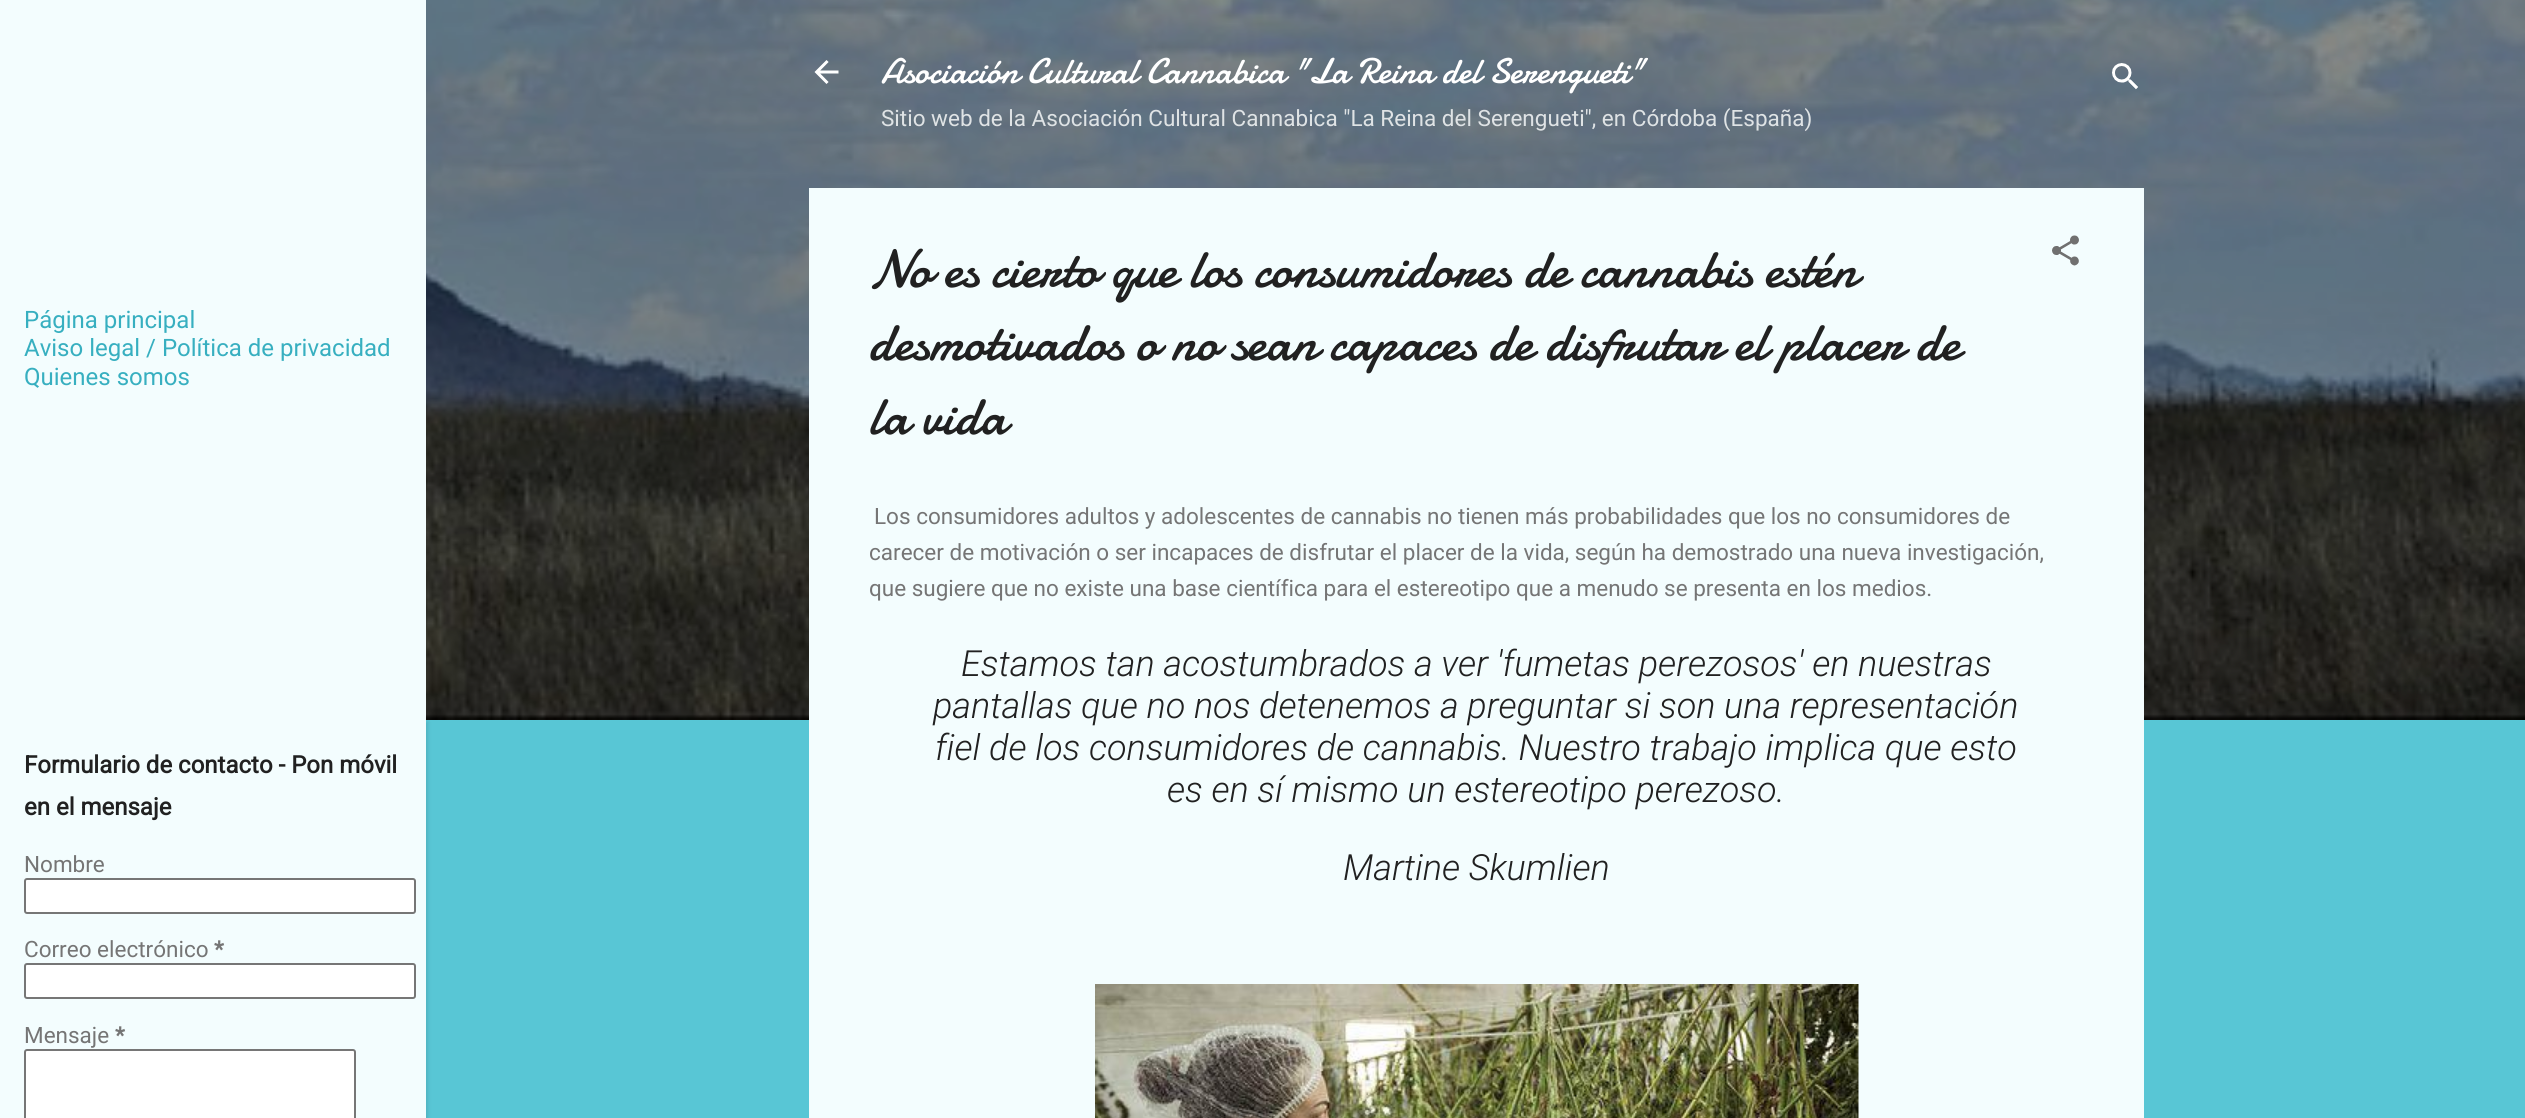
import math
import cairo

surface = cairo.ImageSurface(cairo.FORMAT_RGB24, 2525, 1118)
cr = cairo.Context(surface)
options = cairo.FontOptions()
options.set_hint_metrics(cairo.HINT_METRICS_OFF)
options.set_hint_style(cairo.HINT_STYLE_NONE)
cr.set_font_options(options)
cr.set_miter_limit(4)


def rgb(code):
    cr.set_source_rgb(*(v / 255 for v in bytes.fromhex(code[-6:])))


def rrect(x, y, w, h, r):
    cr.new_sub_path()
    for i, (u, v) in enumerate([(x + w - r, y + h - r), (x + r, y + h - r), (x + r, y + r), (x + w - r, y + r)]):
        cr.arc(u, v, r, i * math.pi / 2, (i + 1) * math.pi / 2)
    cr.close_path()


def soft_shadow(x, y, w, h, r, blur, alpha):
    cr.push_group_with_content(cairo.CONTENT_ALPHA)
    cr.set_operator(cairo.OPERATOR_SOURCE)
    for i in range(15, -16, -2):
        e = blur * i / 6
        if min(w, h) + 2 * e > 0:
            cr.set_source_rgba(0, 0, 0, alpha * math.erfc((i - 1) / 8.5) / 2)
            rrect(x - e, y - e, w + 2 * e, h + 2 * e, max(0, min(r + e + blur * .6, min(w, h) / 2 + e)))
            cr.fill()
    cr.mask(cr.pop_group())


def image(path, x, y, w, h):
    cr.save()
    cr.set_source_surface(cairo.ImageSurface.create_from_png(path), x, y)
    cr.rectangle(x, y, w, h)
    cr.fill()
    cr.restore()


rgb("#58c6d5")
cr.paint()
image("img/1.png", 426, 0, 2099, 720)
rgb("#000000")
soft_shadow(2, 722, 426, 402, 0, 2, 0.1)
rgb("#f3fdfe")
cr.rectangle(0, 0, 426, 1118)
cr.fill()
rgb("#ffffff")
rrect(25, 879, 390, 34, 2)
cr.fill_preserve()
rgb("#767676")
cr.stroke()
rgb("#ffffff")
rrect(25, 964, 390, 34, 2)
cr.fill_preserve()
rgb("#767676")
cr.stroke()
rgb("#ffffff")
rrect(25, 1050, 330, 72, 2)
cr.fill_preserve()
rgb("#767676")
cr.stroke()
image("img/2.png", 814, 60, 25, 24)
image("img/3.png", 2112, 63, 26, 27)
rgb("#f3fdfe")
cr.rectangle(809, 188, 1335, 930)
cr.fill()
image("img/4.png", 2052, 235, 27, 31)
image("img/5.png", 1095, 984, 764, 134)
cr.select_font_face("Roboto")
cr.set_font_size(24)
rgb("#37afc0")
for x, y, s in [
    (24, 328, "Página principal"),
    (24, 356, "Aviso legal / Política de privacidad"),
    (24, 385, "Quienes somos"),
]:
    cr.move_to(x, y)
    cr.show_text(s)
cr.select_font_face("Roboto", cairo.FONT_SLANT_NORMAL, cairo.FONT_WEIGHT_BOLD)
rgb("#212121")
cr.move_to(24, 773)
cr.show_text("Formulario de contacto - Pon móvil")
cr.move_to(24, 815)
cr.show_text("en el mensaje")
cr.select_font_face("Roboto")
cr.set_font_size(22.5)
rgb("#757575")
cr.move_to(24, 872)
cr.show_text("Nombre")
cr.move_to(24, 957)
cr.show_text("Correo electrónico")
cr.select_font_face("Roboto", cairo.FONT_SLANT_NORMAL, cairo.FONT_WEIGHT_BOLD)
cr.move_to(214, 957)
cr.show_text("*")
cr.select_font_face("Roboto")
cr.move_to(24, 1043)
cr.show_text("Mensaje")
cr.select_font_face("Roboto", cairo.FONT_SLANT_NORMAL, cairo.FONT_WEIGHT_BOLD)
cr.move_to(115, 1043)
cr.show_text("*")
cr.select_font_face("Damion")
cr.set_font_size(36)
rgb("#ffffff")
cr.move_to(881, 83)
cr.show_text("Asociación Cultural Cannabica \"La Reina del Serengueti\"")
cr.select_font_face("Roboto")
cr.set_font_size(22.5)
rgb("#dfe3e5")
cr.move_to(881, 126)
cr.show_text("Sitio web de la Asociación Cultural Cannabica \"La Reina del Serengueti\", en Córdoba (España)")
cr.select_font_face("Damion")
cr.set_font_size(54)
rgb("#212121")
for x, y, s in [
    (869, 287, "No es cierto que los consumidores de cannabis estén"),
    (869, 360, "desmotivados o no sean capaces de disfrutar el placer de"),
    (869, 434, "la vida"),
]:
    cr.move_to(x, y)
    cr.show_text(s)
cr.select_font_face("Roboto")
cr.set_font_size(22.5)
rgb("#757575")
for x, y, s in [
    (874, 524, "Los consumidores adultos y adolescentes de cannabis no tienen más probabilidades que los no consumidores de"),
    (869, 560, "carecer de motivación o ser incapaces de disfrutar el placer de la vida, según ha demostrado una nueva investigación,"),
    (869, 596, "que sugiere que no existe una base científica para el estereotipo que a menudo se presenta en los medios."),
]:
    cr.move_to(x, y)
    cr.show_text(s)
cr.select_font_face("Roboto Light", cairo.FONT_SLANT_ITALIC)
cr.set_font_size(36)
rgb("#212121")
for x, y, s in [
    (961, 676, "Estamos tan acostumbrados a ver 'fumetas perezosos' en nuestras"),
    (933, 718, "pantallas que no nos detenemos a preguntar si son una representación"),
    (935, 760, "fiel de los consumidores de cannabis. Nuestro trabajo implica que esto"),
    (1167, 802, "es en sí mismo un estereotipo perezoso."),
    (1343, 880, "Martine Skumlien"),
]:
    cr.move_to(x, y)
    cr.show_text(s)
surface.write_to_png("page.png")
